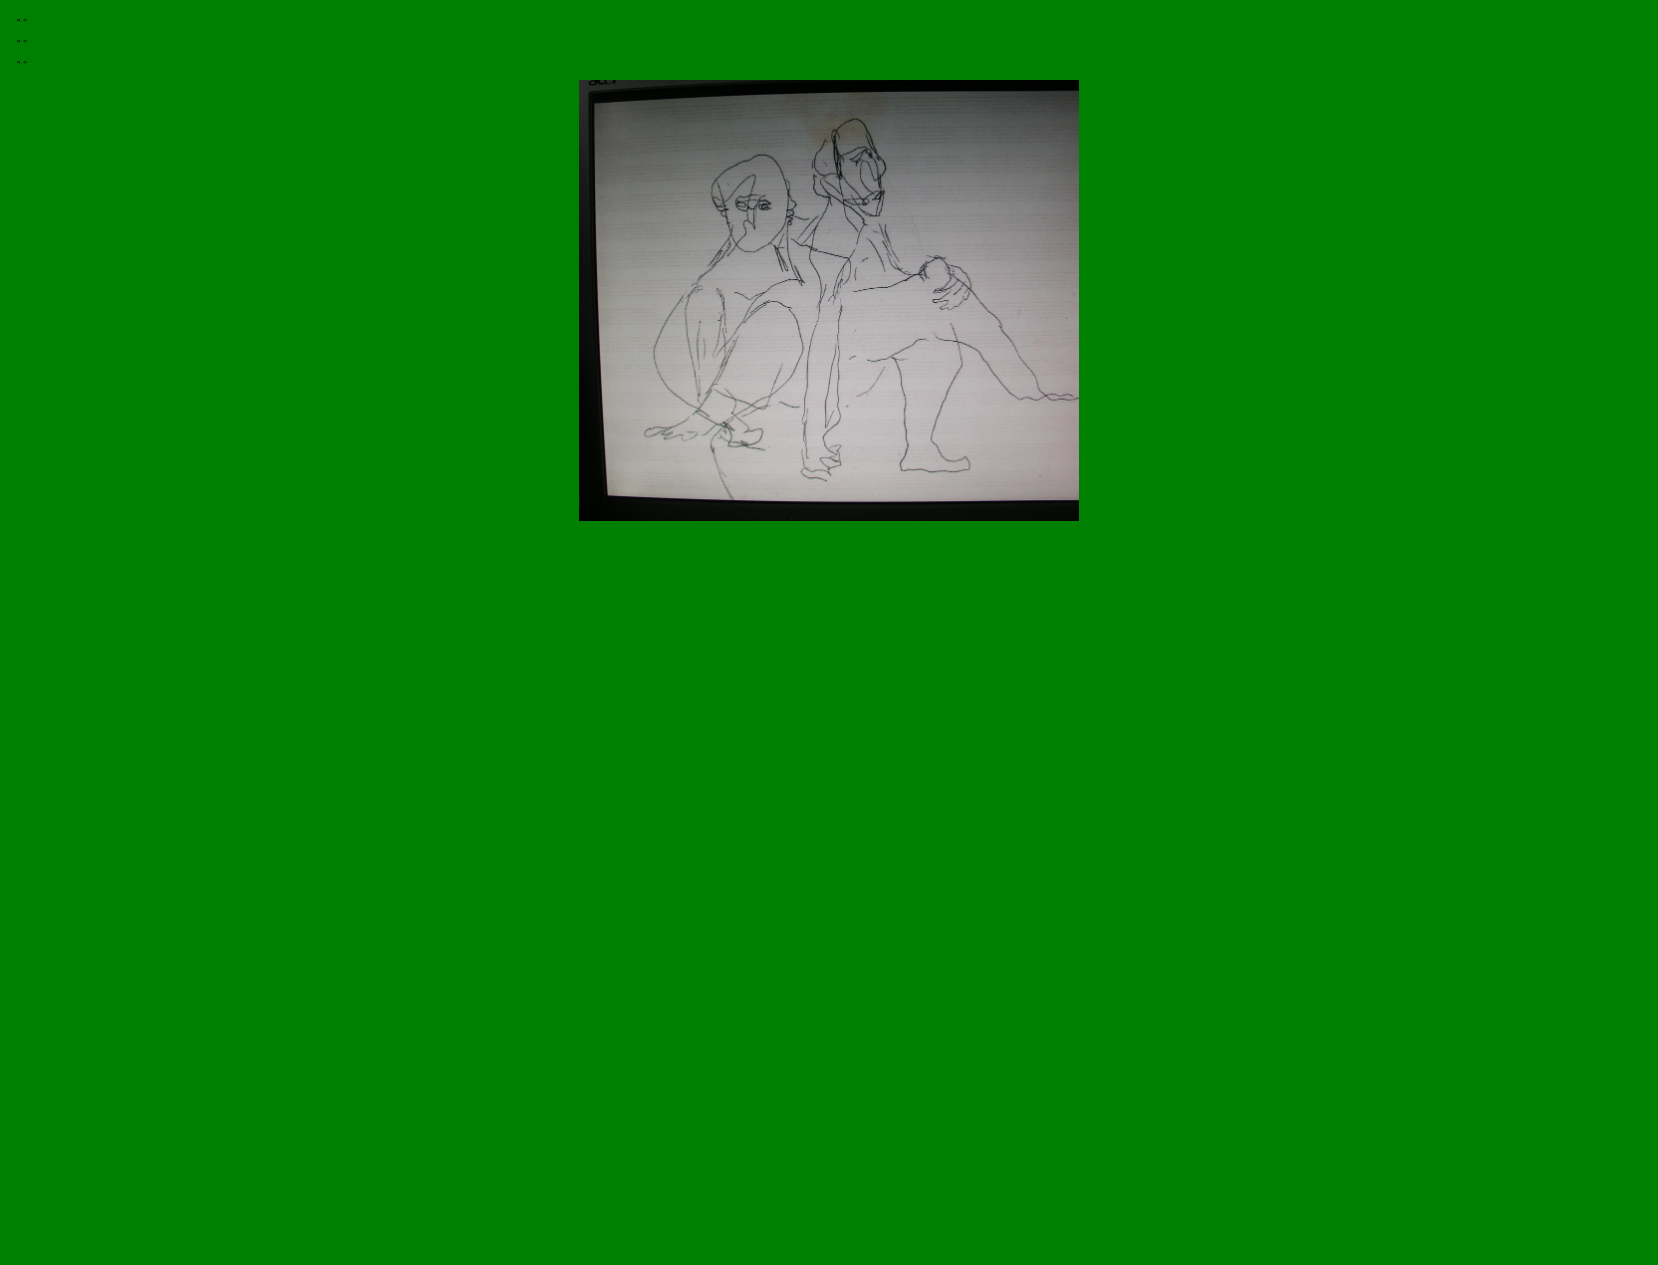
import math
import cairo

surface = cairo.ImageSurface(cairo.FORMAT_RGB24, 1658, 1265)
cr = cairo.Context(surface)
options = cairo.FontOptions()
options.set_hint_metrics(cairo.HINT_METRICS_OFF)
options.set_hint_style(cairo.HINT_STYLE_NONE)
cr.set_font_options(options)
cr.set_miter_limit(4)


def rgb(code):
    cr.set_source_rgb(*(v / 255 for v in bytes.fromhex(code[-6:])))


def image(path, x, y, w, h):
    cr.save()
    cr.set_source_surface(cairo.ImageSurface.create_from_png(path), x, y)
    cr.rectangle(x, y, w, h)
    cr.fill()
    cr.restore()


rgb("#008000")
cr.paint()
image("img/1.png", 579, 80, 500, 441)
cr.select_font_face("Liberation Sans")
cr.set_font_size(10)
rgb("#000000")
for x, y, s in [
    (17, 26, "\" \""),
    (17, 47, "\" \""),
    (17, 68, "\" \""),
]:
    cr.move_to(x, y)
    cr.show_text(s)
surface.write_to_png("page.png")
